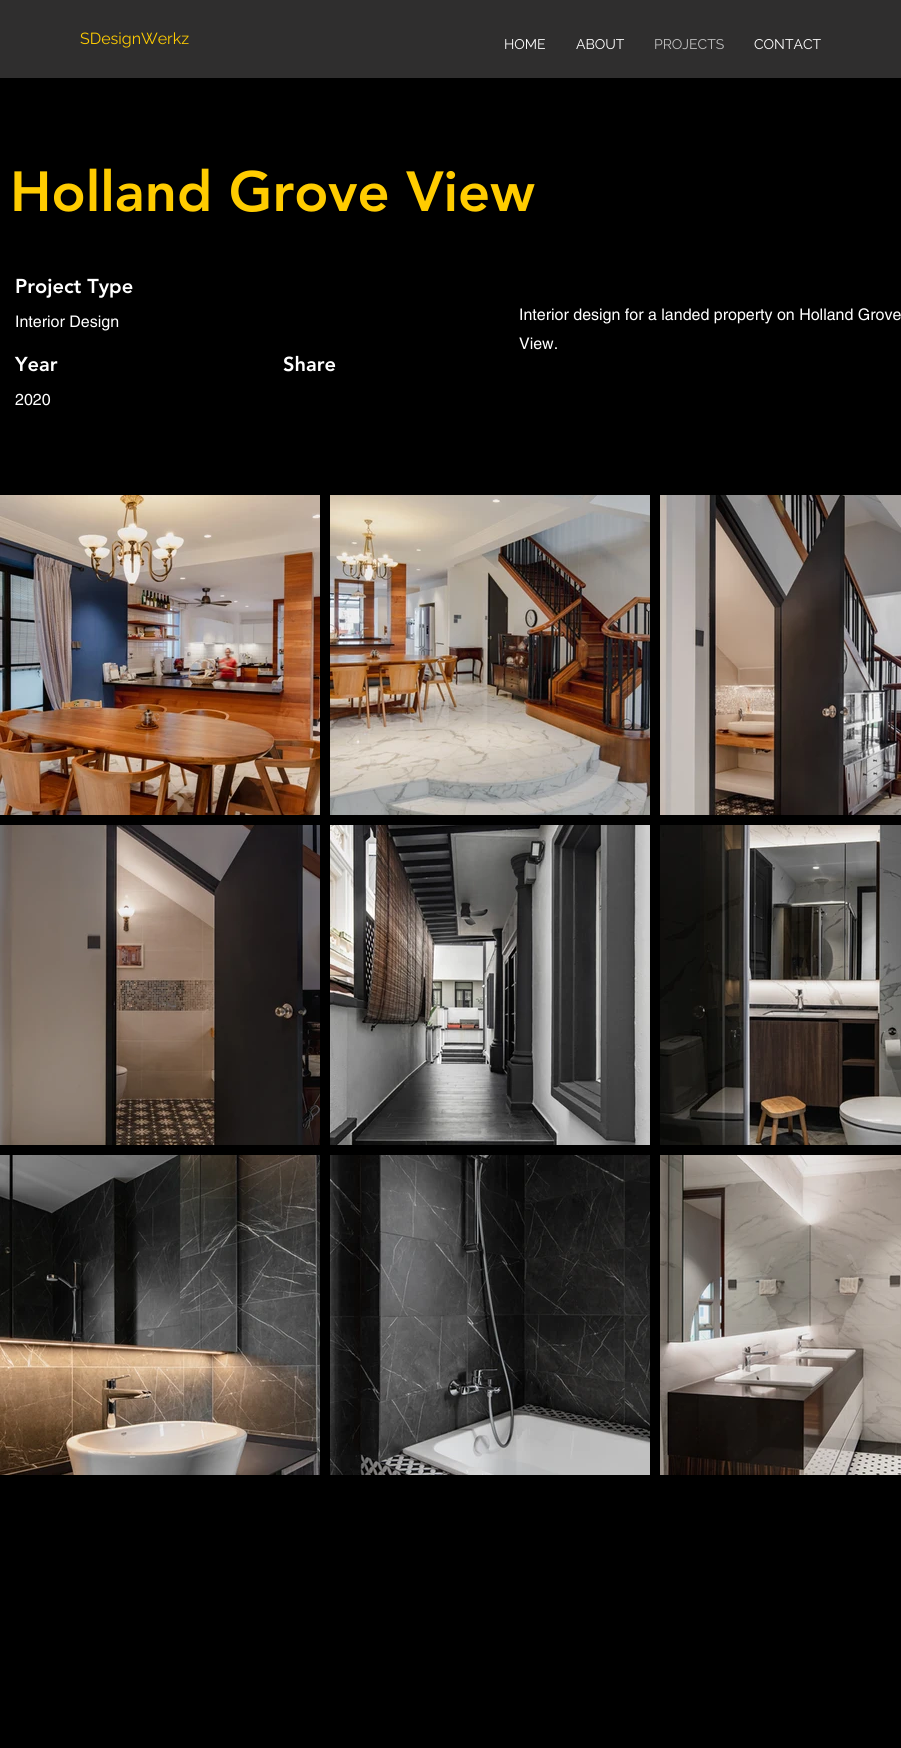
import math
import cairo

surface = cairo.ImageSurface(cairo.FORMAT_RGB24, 901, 1748)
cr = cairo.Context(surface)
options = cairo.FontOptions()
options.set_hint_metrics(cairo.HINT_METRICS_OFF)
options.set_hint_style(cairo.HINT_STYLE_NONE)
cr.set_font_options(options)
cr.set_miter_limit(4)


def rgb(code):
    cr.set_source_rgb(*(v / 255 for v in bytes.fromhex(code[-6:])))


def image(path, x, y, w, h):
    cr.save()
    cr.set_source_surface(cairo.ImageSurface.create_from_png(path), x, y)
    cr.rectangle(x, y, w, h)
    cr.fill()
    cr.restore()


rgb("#000000")
cr.paint()
rgb("#2f2e2e")
cr.rectangle(0, 0, 901, 78)
cr.fill()
image("img/1.png", 0, 495, 320, 320)
image("img/2.png", 330, 495, 320, 320)
image("img/3.png", 660, 495, 241, 320)
image("img/4.png", 0, 825, 320, 320)
image("img/5.png", 330, 825, 320, 320)
image("img/6.png", 660, 825, 241, 320)
image("img/7.png", 0, 1155, 320, 320)
image("img/8.png", 330, 1155, 320, 320)
image("img/9.png", 660, 1155, 241, 320)
cr.select_font_face("Raleway")
cr.set_font_size(16)
rgb("#ffcc00")
cr.move_to(80, 44)
cr.show_text("SDesignWerkz")
cr.set_font_size(14)
rgb("#ffffff")
cr.move_to(504, 49)
cr.show_text("HOME")
cr.move_to(576, 49)
cr.show_text("ABOUT")
rgb("#bfbfbf")
cr.move_to(654, 49)
cr.show_text("PROJECTS")
rgb("#ffffff")
cr.move_to(754, 49)
cr.show_text("CONTACT")
cr.select_font_face("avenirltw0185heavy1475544 Black")
cr.set_font_size(56)
rgb("#ffcc00")
cr.move_to(10, 211)
cr.show_text("Holland Grove View")
cr.set_font_size(20)
rgb("#ffffff")
cr.move_to(15, 293)
cr.show_text("Project Type")
cr.select_font_face("helvetica")
cr.set_font_size(16)
cr.move_to(15, 327)
cr.show_text("Interior Design")
cr.select_font_face("avenirltw0185heavy1475544 Black")
cr.set_font_size(20)
cr.move_to(15, 371)
cr.show_text("Year")
cr.move_to(283, 371)
cr.show_text("Share")
cr.select_font_face("helvetica")
cr.set_font_size(16)
for x, y, s in [
    (15, 405, "2020"),
    (519, 320, "Interior design for a landed property on Holland Grove"),
    (519, 349, "View."),
]:
    cr.move_to(x, y)
    cr.show_text(s)
surface.write_to_png("page.png")
